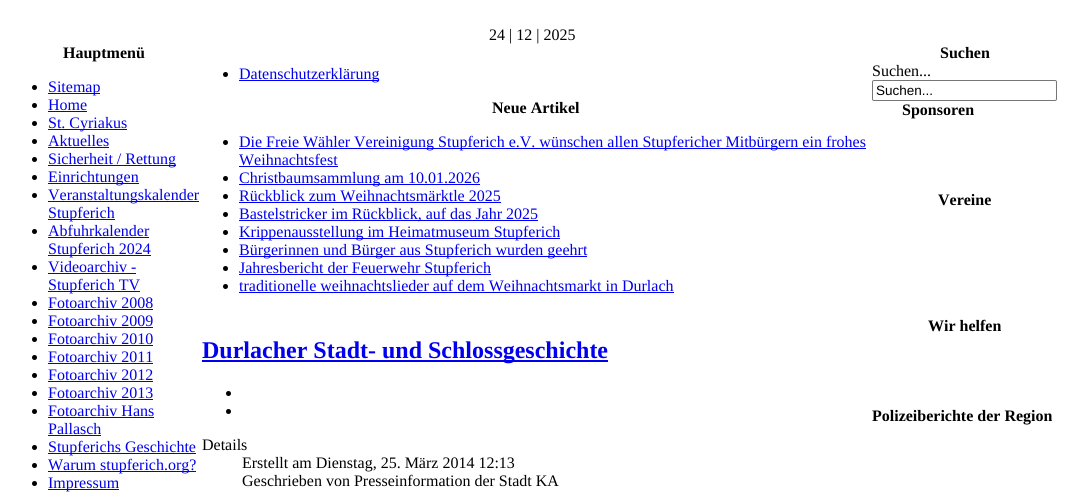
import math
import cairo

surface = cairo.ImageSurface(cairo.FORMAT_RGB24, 1065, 498)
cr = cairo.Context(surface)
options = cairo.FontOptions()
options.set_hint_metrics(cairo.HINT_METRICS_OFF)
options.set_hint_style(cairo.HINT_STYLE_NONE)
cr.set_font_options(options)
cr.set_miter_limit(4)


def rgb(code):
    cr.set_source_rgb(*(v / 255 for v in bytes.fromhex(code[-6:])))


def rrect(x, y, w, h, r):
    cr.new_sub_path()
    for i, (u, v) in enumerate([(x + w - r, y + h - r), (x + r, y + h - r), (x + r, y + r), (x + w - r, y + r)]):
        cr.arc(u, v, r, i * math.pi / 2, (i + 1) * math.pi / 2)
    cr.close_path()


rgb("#ffffff")
cr.paint()
rgb("#000000")
cr.arc(34.5, 87.5, 2.5, 0, 2 * math.pi)
cr.fill()
rgb("#0000ee")
cr.rectangle(48, 93, 52, 1)
cr.fill()
rgb("#000000")
cr.arc(34.5, 105.5, 2.5, 0, 2 * math.pi)
cr.fill()
rgb("#0000ee")
cr.rectangle(48, 111, 39, 1)
cr.fill()
rgb("#000000")
cr.arc(34.5, 123.5, 2.5, 0, 2 * math.pi)
cr.fill()
rgb("#0000ee")
cr.rectangle(48, 129, 79, 1)
cr.fill()
rgb("#000000")
cr.arc(34.5, 141.5, 2.5, 0, 2 * math.pi)
cr.fill()
rgb("#0000ee")
cr.rectangle(48, 147, 61, 1)
cr.fill()
rgb("#000000")
cr.arc(34.5, 159.5, 2.5, 0, 2 * math.pi)
cr.fill()
rgb("#0000ee")
cr.rectangle(48, 165, 128, 1)
cr.fill()
rgb("#000000")
cr.arc(34.5, 177.5, 2.5, 0, 2 * math.pi)
cr.fill()
rgb("#0000ee")
cr.rectangle(48, 183, 91, 1)
cr.fill()
rgb("#000000")
cr.arc(34.5, 195.5, 2.5, 0, 2 * math.pi)
cr.fill()
rgb("#0000ee")
cr.rectangle(48, 201, 151, 1)
cr.fill()
cr.rectangle(48, 219, 67, 1)
cr.fill()
rgb("#000000")
cr.arc(34.5, 231.5, 2.5, 0, 2 * math.pi)
cr.fill()
rgb("#0000ee")
cr.rectangle(48, 237, 101, 1)
cr.fill()
cr.rectangle(48, 255, 103, 1)
cr.fill()
rgb("#000000")
cr.arc(34.5, 267.5, 2.5, 0, 2 * math.pi)
cr.fill()
rgb("#0000ee")
cr.rectangle(48, 273, 88, 1)
cr.fill()
cr.rectangle(48, 291, 92, 1)
cr.fill()
rgb("#000000")
cr.arc(34.5, 303.5, 2.5, 0, 2 * math.pi)
cr.fill()
rgb("#0000ee")
cr.rectangle(48, 309, 105, 1)
cr.fill()
rgb("#000000")
cr.arc(34.5, 321.5, 2.5, 0, 2 * math.pi)
cr.fill()
rgb("#0000ee")
cr.rectangle(48, 327, 105, 1)
cr.fill()
rgb("#000000")
cr.arc(34.5, 339.5, 2.5, 0, 2 * math.pi)
cr.fill()
rgb("#0000ee")
cr.rectangle(48, 345, 105, 1)
cr.fill()
rgb("#000000")
cr.arc(34.5, 357.5, 2.5, 0, 2 * math.pi)
cr.fill()
rgb("#0000ee")
cr.rectangle(48, 363, 105, 1)
cr.fill()
rgb("#000000")
cr.arc(34.5, 375.5, 2.5, 0, 2 * math.pi)
cr.fill()
rgb("#0000ee")
cr.rectangle(48, 381, 105, 1)
cr.fill()
rgb("#000000")
cr.arc(34.5, 393.5, 2.5, 0, 2 * math.pi)
cr.fill()
rgb("#0000ee")
cr.rectangle(48, 399, 105, 1)
cr.fill()
rgb("#000000")
cr.arc(34.5, 411.5, 2.5, 0, 2 * math.pi)
cr.fill()
rgb("#0000ee")
cr.rectangle(48, 417, 106, 1)
cr.fill()
cr.rectangle(48, 435, 53, 1)
cr.fill()
rgb("#000000")
cr.arc(34.5, 447.5, 2.5, 0, 2 * math.pi)
cr.fill()
rgb("#0000ee")
cr.rectangle(48, 453, 148, 1)
cr.fill()
rgb("#000000")
cr.arc(34.5, 465.5, 2.5, 0, 2 * math.pi)
cr.fill()
rgb("#0000ee")
cr.rectangle(48, 471, 148, 1)
cr.fill()
rgb("#000000")
cr.arc(34.5, 483.5, 2.5, 0, 2 * math.pi)
cr.fill()
rgb("#0000ee")
cr.rectangle(48, 489, 71, 1)
cr.fill()
rgb("#000000")
cr.arc(225.5, 74.5, 2.5, 0, 2 * math.pi)
cr.fill()
rgb("#0000ee")
cr.rectangle(239, 80, 140, 1)
cr.fill()
rgb("#000000")
cr.arc(225.5, 142.5, 2.5, 0, 2 * math.pi)
cr.fill()
rgb("#0000ee")
cr.rectangle(239, 148, 627, 1)
cr.fill()
cr.rectangle(239, 166, 99, 1)
cr.fill()
rgb("#000000")
cr.arc(225.5, 178.5, 2.5, 0, 2 * math.pi)
cr.fill()
rgb("#0000ee")
cr.rectangle(239, 184, 241, 1)
cr.fill()
rgb("#000000")
cr.arc(225.5, 196.5, 2.5, 0, 2 * math.pi)
cr.fill()
rgb("#0000ee")
cr.rectangle(239, 202, 262, 1)
cr.fill()
rgb("#000000")
cr.arc(225.5, 214.5, 2.5, 0, 2 * math.pi)
cr.fill()
rgb("#0000ee")
cr.rectangle(239, 220, 299, 1)
cr.fill()
rgb("#000000")
cr.arc(225.5, 232.5, 2.5, 0, 2 * math.pi)
cr.fill()
rgb("#0000ee")
cr.rectangle(239, 238, 321, 1)
cr.fill()
rgb("#000000")
cr.arc(225.5, 250.5, 2.5, 0, 2 * math.pi)
cr.fill()
rgb("#0000ee")
cr.rectangle(239, 256, 348, 1)
cr.fill()
rgb("#000000")
cr.arc(225.5, 268.5, 2.5, 0, 2 * math.pi)
cr.fill()
rgb("#0000ee")
cr.rectangle(239, 274, 252, 1)
cr.fill()
rgb("#000000")
cr.arc(225.5, 286.5, 2.5, 0, 2 * math.pi)
cr.fill()
rgb("#0000ee")
cr.rectangle(239, 292, 435, 1)
cr.fill()
cr.rectangle(202, 360, 406, 2)
cr.fill()
rgb("#000000")
cr.arc(228.5, 393.5, 2.5, 0, 2 * math.pi)
cr.fill()
cr.arc(228.5, 411.5, 2.5, 0, 2 * math.pi)
cr.fill()
rrect(872.5, 80.5, 184, 20, 1.5)
rgb("#767676")
cr.set_line_width(1)
cr.stroke()
cr.select_font_face("Liberation Serif")
cr.set_font_size(16)
rgb("#000000")
cr.move_to(489, 40)
cr.show_text("24 | 12 | 2025")
cr.select_font_face("Liberation Serif", cairo.FONT_SLANT_NORMAL, cairo.FONT_WEIGHT_BOLD)
cr.move_to(63, 58)
cr.show_text("Hauptmenü")
cr.select_font_face("Liberation Serif")
rgb("#0000ee")
for x, y, s in [
    (48, 92, "Sitemap"),
    (48, 110, "Home"),
    (48, 128, "St. Cyriakus"),
    (48, 146, "Aktuelles"),
    (48, 164, "Sicherheit / Rettung"),
    (48, 182, "Einrichtungen"),
    (48, 200, "Veranstaltungskalender"),
    (48, 218, "Stupferich"),
    (48, 236, "Abfuhrkalender"),
    (48, 254, "Stupferich 2024"),
    (48, 272, "Videoarchiv -"),
    (48, 290, "Stupferich TV"),
    (48, 308, "Fotoarchiv 2008"),
    (48, 326, "Fotoarchiv 2009"),
    (48, 344, "Fotoarchiv 2010"),
    (48, 362, "Fotoarchiv 2011"),
    (48, 380, "Fotoarchiv 2012"),
    (48, 398, "Fotoarchiv 2013"),
    (48, 416, "Fotoarchiv Hans"),
    (48, 434, "Pallasch"),
    (48, 452, "Stupferichs Geschichte"),
    (48, 470, "Warum stupferich.org?"),
    (48, 488, "Impressum"),
    (239, 79, "Datenschutzerklärung"),
]:
    cr.move_to(x, y)
    cr.show_text(s)
cr.select_font_face("Liberation Serif", cairo.FONT_SLANT_NORMAL, cairo.FONT_WEIGHT_BOLD)
rgb("#000000")
cr.move_to(492, 113)
cr.show_text("Neue Artikel")
cr.select_font_face("Liberation Serif")
rgb("#0000ee")
for x, y, s in [
    (239, 147, "Die Freie Wähler Vereinigung Stupferich e.V. wünschen allen Stupfericher Mitbürgern ein frohes"),
    (239, 165, "Weihnachtsfest"),
    (239, 183, "Christbaumsammlung am 10.01.2026"),
    (239, 201, "Rückblick zum Weihnachtsmärktle 2025"),
    (239, 219, "Bastelstricker im Rückblick, auf das Jahr 2025"),
    (239, 237, "Krippenausstellung im Heimatmuseum Stupferich"),
    (239, 255, "Bürgerinnen und Bürger aus Stupferich wurden geehrt"),
    (239, 273, "Jahresbericht der Feuerwehr Stupferich"),
    (239, 291, "traditionelle weihnachtslieder auf dem Weihnachtsmarkt in Durlach"),
]:
    cr.move_to(x, y)
    cr.show_text(s)
cr.select_font_face("Liberation Serif", cairo.FONT_SLANT_NORMAL, cairo.FONT_WEIGHT_BOLD)
cr.set_font_size(24)
cr.move_to(202, 358)
cr.show_text("Durlacher Stadt- und Schlossgeschichte")
cr.select_font_face("Liberation Serif")
cr.set_font_size(16)
rgb("#000000")
for x, y, s in [
    (202, 450, "Details"),
    (242, 468, "Erstellt am Dienstag, 25. März 2014 12:13"),
    (242, 486, "Geschrieben von Presseinformation der Stadt KA"),
]:
    cr.move_to(x, y)
    cr.show_text(s)
cr.select_font_face("Liberation Serif", cairo.FONT_SLANT_NORMAL, cairo.FONT_WEIGHT_BOLD)
cr.move_to(940, 58)
cr.show_text("Suchen")
cr.select_font_face("Liberation Serif")
cr.move_to(872, 76)
cr.show_text("Suchen...")
cr.select_font_face("Liberation Sans")
cr.set_font_size(13.5)
cr.move_to(876, 95)
cr.show_text("Suchen...")
cr.select_font_face("Liberation Serif", cairo.FONT_SLANT_NORMAL, cairo.FONT_WEIGHT_BOLD)
cr.set_font_size(16)
for x, y, s in [
    (902, 115, "Sponsoren"),
    (938, 205, "Vereine"),
    (928, 331, "Wir helfen"),
    (872, 421, "Polizeiberichte der Region"),
]:
    cr.move_to(x, y)
    cr.show_text(s)
surface.write_to_png("page.png")
